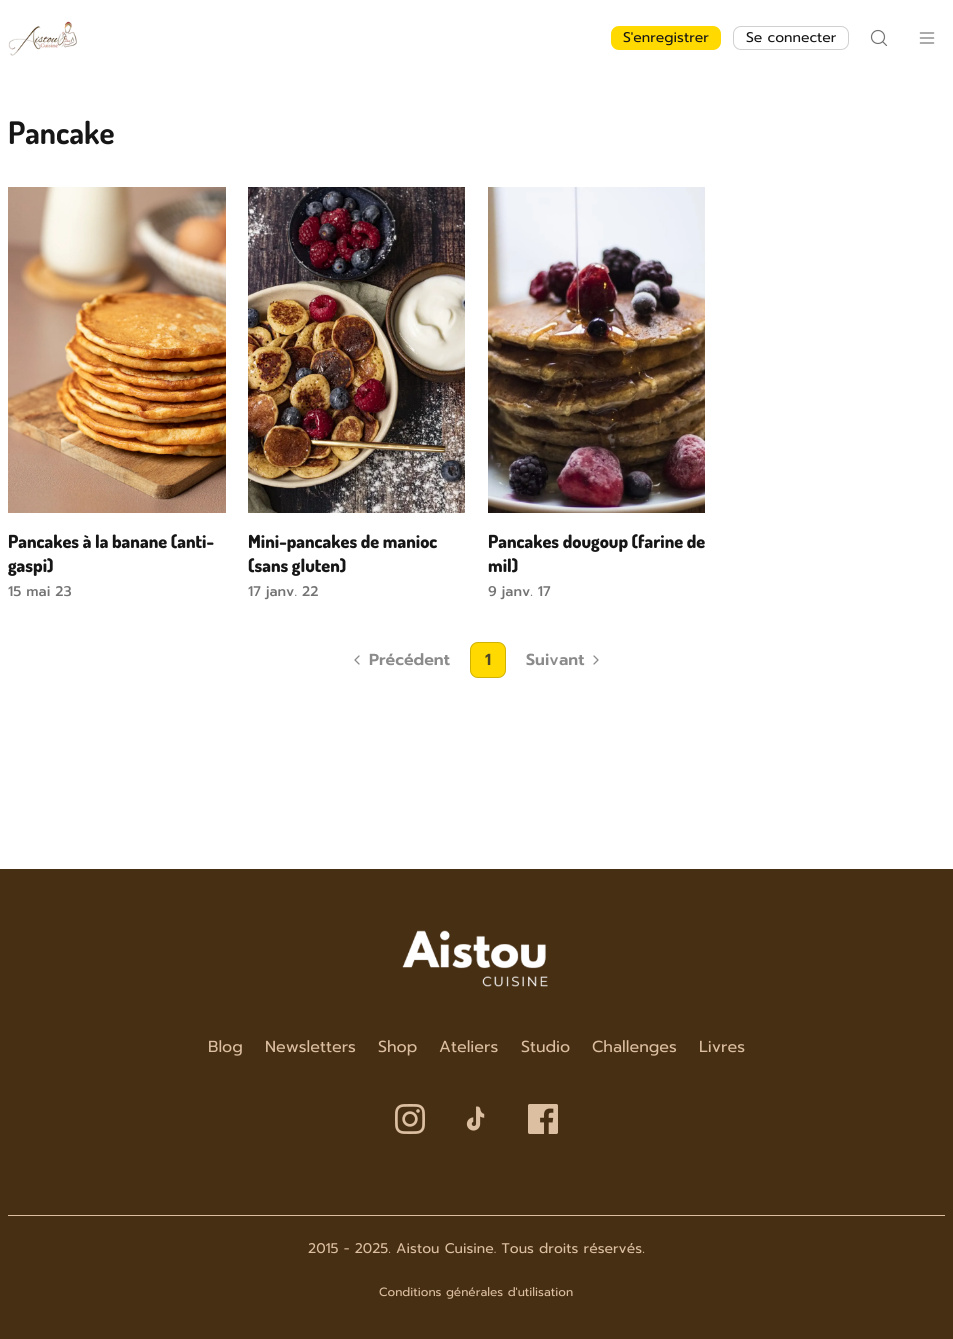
import math
import cairo

surface = cairo.ImageSurface(cairo.FORMAT_RGB24, 953, 1339)
cr = cairo.Context(surface)
options = cairo.FontOptions()
options.set_hint_metrics(cairo.HINT_METRICS_OFF)
options.set_hint_style(cairo.HINT_STYLE_NONE)
cr.set_font_options(options)
cr.set_miter_limit(4)


def rgb(code):
    cr.set_source_rgb(*(v / 255 for v in bytes.fromhex(code[-6:])))


def rrect(x, y, w, h, r):
    cr.new_sub_path()
    for i, (u, v) in enumerate([(x + w - r, y + h - r), (x + r, y + h - r), (x + r, y + r), (x + w - r, y + r)]):
        cr.arc(u, v, r, i * math.pi / 2, (i + 1) * math.pi / 2)
    cr.close_path()


def image(path, x, y, w, h):
    cr.save()
    cr.set_source_surface(cairo.ImageSurface.create_from_png(path), x, y)
    cr.rectangle(x, y, w, h)
    cr.fill()
    cr.restore()


rgb("#ffffff")
cr.paint()
image("img/1.png", 8, 21, 69, 35)
rgb("#ffd900")
rrect(611, 26, 110, 24, 8)
cr.fill()
rrect(733.5, 26.5, 115, 23, 7.5)
rgb("#d0d0d0")
cr.set_line_width(1)
cr.stroke()
cr.arc(878, 37, 6.5, 0, 2 * math.pi)
rgb("#737373")
cr.set_line_width(1.2)
cr.stroke()
cr.new_path()
cr.move_to(886.5, 45.5)
cr.line_to(883, 42)
cr.set_line_cap(cairo.LINE_CAP_ROUND)
cr.set_line_join(cairo.LINE_JOIN_ROUND)
cr.stroke()
image("img/2.png", 919, 32, 16, 12)
image("img/3.png", 8, 187, 218, 326)
image("img/4.png", 248, 187, 217, 326)
image("img/5.png", 488, 187, 217, 326)
cr.new_path()
cr.move_to(359, 664)
cr.line_to(355, 660)
cr.line_to(359, 656)
rgb("#8b8b8b")
cr.set_line_width(1.3)
cr.stroke()
rgb("#ffd900")
rrect(470, 642, 36, 36, 8)
cr.fill()
rrect(470.5, 642.5, 35, 35, 7.5)
cr.set_source_rgba(0.086, 0.086, 0.086, 0.2)
cr.set_line_width(1)
cr.set_line_cap(cairo.LINE_CAP_BUTT)
cr.set_line_join(cairo.LINE_JOIN_MITER)
cr.stroke()
cr.new_path()
cr.move_to(594, 664)
cr.line_to(598, 660)
cr.line_to(594, 656)
rgb("#8b8b8b")
cr.set_line_width(1.3)
cr.set_line_cap(cairo.LINE_CAP_ROUND)
cr.set_line_join(cairo.LINE_JOIN_ROUND)
cr.stroke()
rgb("#472f14")
cr.rectangle(0, 869, 953, 470)
cr.fill()
image("img/6.png", 402, 930, 146, 57)
image("img/7.png", 395, 1104, 30, 30)
image("img/8.png", 466, 1106, 19, 25)
image("img/9.png", 528, 1104, 30, 30)
rgb("#dcbea0")
cr.rectangle(8, 1215, 937, 1)
cr.fill()
cr.select_font_face("Prompt")
cr.set_font_size(14)
rgb("#161616")
cr.move_to(623, 42)
cr.show_text("S'enregistrer")
cr.move_to(746, 42)
cr.show_text("Se connecter")
cr.select_font_face("Dosis", cairo.FONT_SLANT_NORMAL, cairo.FONT_WEIGHT_BOLD)
cr.set_font_size(31)
cr.move_to(8, 144)
cr.show_text("Pancake")
cr.select_font_face("Dosis ExtraBold")
cr.set_font_size(18)
cr.move_to(8, 548)
cr.show_text("Pancakes à la banane (anti-")
cr.move_to(8, 572)
cr.show_text("gaspi)")
cr.select_font_face("Prompt Medium")
cr.set_font_size(14)
rgb("#737373")
cr.move_to(8, 596)
cr.show_text("15 mai 23")
cr.select_font_face("Dosis ExtraBold")
cr.set_font_size(18)
rgb("#161616")
cr.move_to(248, 548)
cr.show_text("Mini-pancakes de manioc")
cr.move_to(248, 572)
cr.show_text("(sans gluten)")
cr.select_font_face("Prompt Medium")
cr.set_font_size(14)
rgb("#737373")
cr.move_to(248, 596)
cr.show_text("17 janv. 22")
cr.select_font_face("Dosis ExtraBold")
cr.set_font_size(18)
rgb("#161616")
cr.move_to(488, 548)
cr.show_text("Pancakes dougoup (farine de")
cr.move_to(488, 572)
cr.show_text("mil)")
cr.select_font_face("Prompt Medium")
cr.set_font_size(14)
rgb("#737373")
cr.move_to(488, 596)
cr.show_text("9 janv. 17")
cr.select_font_face("Prompt SemiBold")
cr.set_font_size(16)
rgb("#8b8b8b")
cr.move_to(369, 665)
cr.show_text("Précédent")
rgb("#4c4528")
cr.move_to(485, 665)
cr.show_text("1")
rgb("#8b8b8b")
cr.move_to(526, 665)
cr.show_text("Suivant")
cr.select_font_face("Prompt")
rgb("#dcbea0")
for x, y, s in [
    (208, 1052, "Blog"),
    (265, 1052, "Newsletters"),
    (378, 1052, "Shop"),
    (439, 1052, "Ateliers"),
    (521, 1052, "Studio"),
    (592, 1052, "Challenges"),
    (699, 1052, "Livres"),
]:
    cr.move_to(x, y)
    cr.show_text(s)
cr.set_font_size(14)
cr.move_to(308, 1253)
cr.show_text("2015 - 2025. Aistou Cuisine. Tous droits réservés.")
cr.set_font_size(12)
cr.move_to(379, 1296)
cr.show_text("Conditions générales d'utilisation")
surface.write_to_png("page.png")
